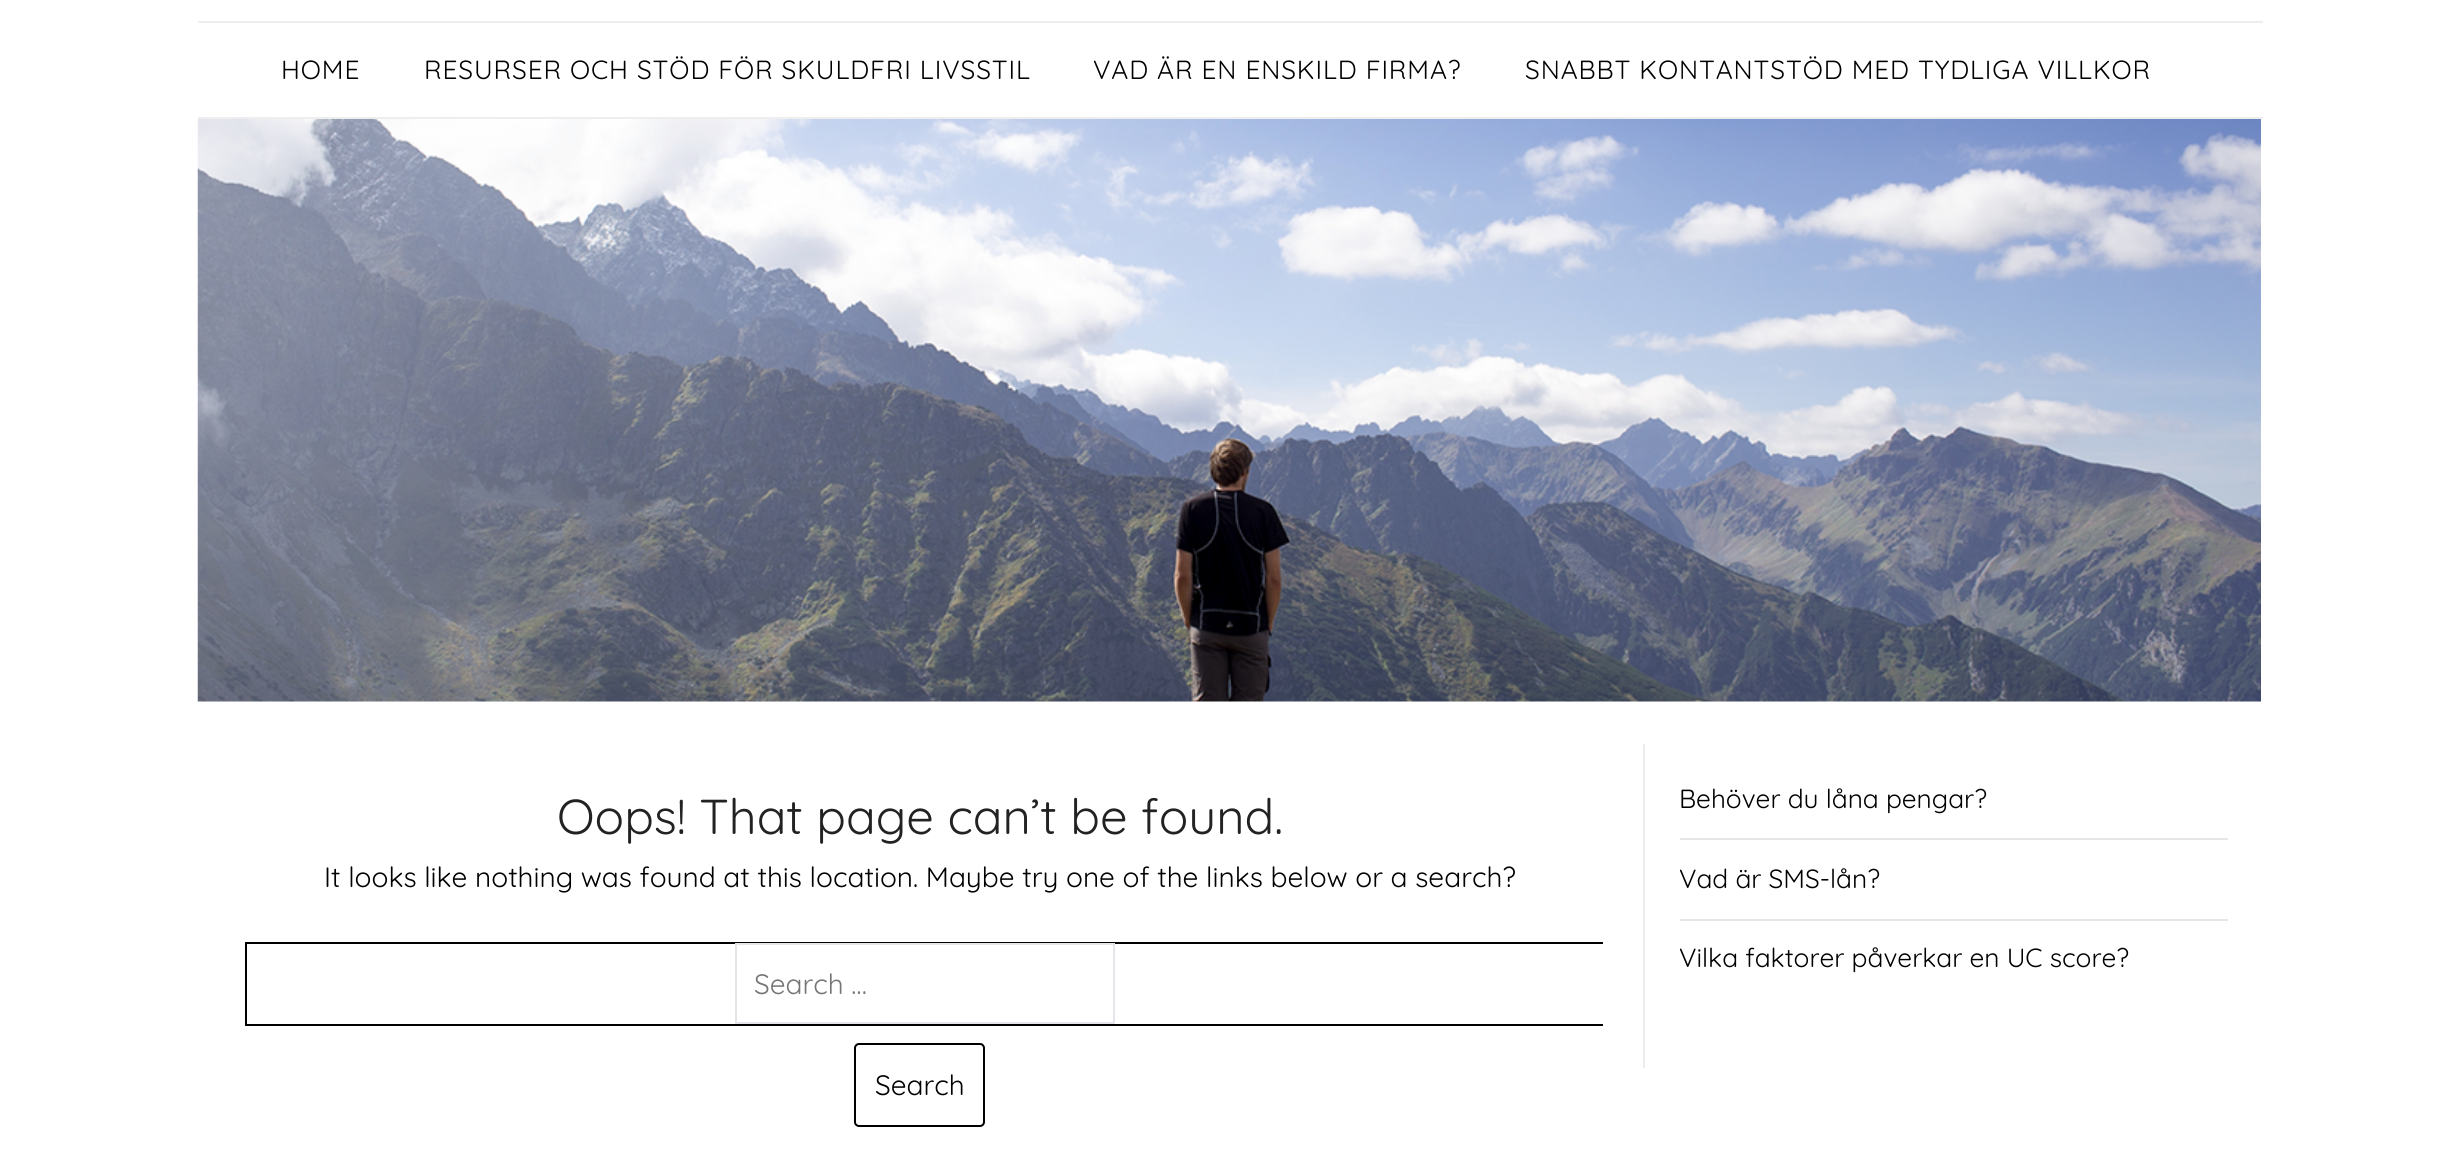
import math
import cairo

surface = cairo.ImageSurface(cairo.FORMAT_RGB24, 2458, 1152)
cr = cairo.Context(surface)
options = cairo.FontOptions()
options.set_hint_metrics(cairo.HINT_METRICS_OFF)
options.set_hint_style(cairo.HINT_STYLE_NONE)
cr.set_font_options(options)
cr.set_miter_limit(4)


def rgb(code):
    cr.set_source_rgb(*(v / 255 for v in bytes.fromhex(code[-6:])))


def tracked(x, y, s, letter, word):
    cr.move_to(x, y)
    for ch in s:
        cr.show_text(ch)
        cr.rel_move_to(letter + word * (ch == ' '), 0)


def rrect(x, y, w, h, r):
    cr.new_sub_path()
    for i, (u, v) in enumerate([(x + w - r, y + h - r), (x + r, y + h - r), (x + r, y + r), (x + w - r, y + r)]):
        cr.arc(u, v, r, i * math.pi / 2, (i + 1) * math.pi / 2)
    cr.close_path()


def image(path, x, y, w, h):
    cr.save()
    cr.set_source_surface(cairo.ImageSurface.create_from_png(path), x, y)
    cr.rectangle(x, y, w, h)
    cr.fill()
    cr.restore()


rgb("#ffffff")
cr.paint()
rgb("#eeeeee")
cr.rectangle(198, 21, 2065, 2)
cr.fill()
image("img/1.png", 197, 118, 2064, 584)
for x, y, w, h, color in [
    (198, 117, 2065, 2, "#eeeeee"),
    (245, 942, 1358, 2, "#000000"),
    (245, 1024, 1358, 2, "#000000"),
    (245, 942, 2, 84, "#000000"),
]:
    rgb(color)
    cr.rectangle(x, y, w, h)
    cr.fill()
cr.rectangle(736, 944, 378, 79)
rgb("#e5e6e9")
cr.stroke()
rrect(855, 1044, 129, 82, 4)
rgb("#000000")
cr.stroke()
for x, y, w, h, color in [
    (1643, 744, 2, 324, "#ebebeb"),
    (1680, 838, 548, 2, "#e6e6e6"),
    (1680, 919, 548, 2, "#e6e6e6"),
]:
    rgb(color)
    cr.rectangle(x, y, w, h)
    cr.fill()
cr.select_font_face("Quicksand")
cr.set_font_size(26.25)
rgb("#000000")
for x, y, s in [
    (281, 79, "HOME"),
    (424, 79, "RESURSER OCH STÖD FÖR SKULDFRI LIVSSTIL"),
    (1093, 79, "VAD ÄR EN ENSKILD FIRMA?"),
    (1525, 79, "SNABBT KONTANTSTÖD MED TYDLIGA VILLKOR"),
]:
    tracked(x, y, s, 0.9, 0)
cr.set_font_size(49)
rgb("#222222")
cr.move_to(557, 834)
cr.show_text("Oops! That page can’t be found.")
cr.set_font_size(28)
rgb("#000000")
cr.move_to(324, 887)
cr.show_text("It looks like nothing was found at this location. Maybe try one of the links below or a search?")
rgb("#757575")
cr.move_to(754, 994)
cr.show_text("Search …")
rgb("#000000")
cr.move_to(875, 1095)
cr.show_text("Search")
cr.set_font_size(26.25)
for x, y, s in [
    (1679, 808, "Behöver du låna pengar?"),
    (1679, 888, "Vad är SMS-lån?"),
    (1679, 967, "Vilka faktorer påverkar en UC score?"),
]:
    cr.move_to(x, y)
    cr.show_text(s)
surface.write_to_png("page.png")
